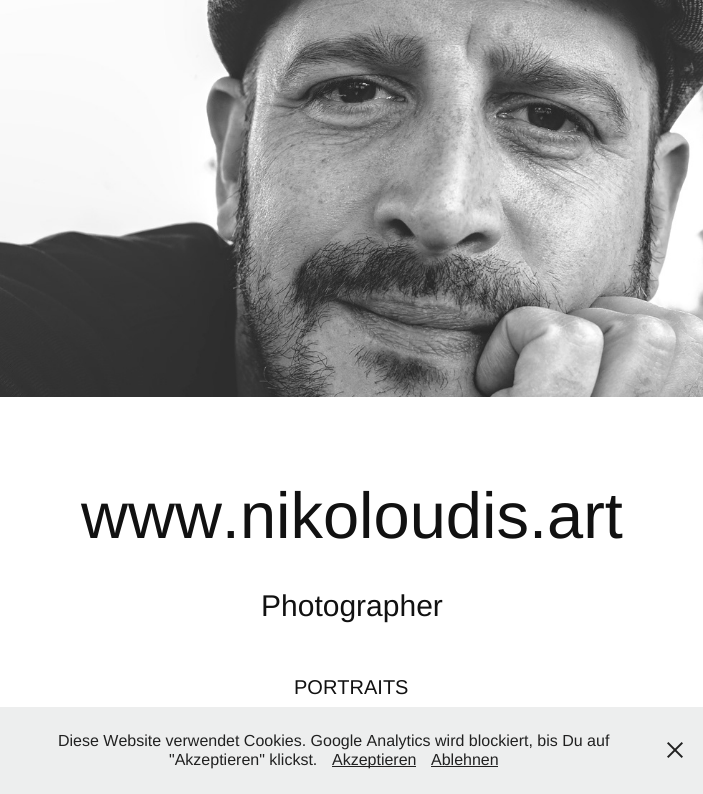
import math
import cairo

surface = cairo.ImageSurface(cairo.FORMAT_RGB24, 703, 794)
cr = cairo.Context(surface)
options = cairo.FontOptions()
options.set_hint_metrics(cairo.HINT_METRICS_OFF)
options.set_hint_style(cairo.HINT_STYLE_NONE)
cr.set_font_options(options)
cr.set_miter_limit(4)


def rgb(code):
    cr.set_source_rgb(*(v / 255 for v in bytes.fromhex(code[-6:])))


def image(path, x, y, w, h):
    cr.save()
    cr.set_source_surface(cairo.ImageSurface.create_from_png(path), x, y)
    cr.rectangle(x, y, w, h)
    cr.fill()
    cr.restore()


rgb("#ffffff")
cr.paint()
image("img/1.png", 0, 0, 703, 397)
for x, y, w, h, color in [
    (0, 707, 703, 87, "#edeeee"),
    (332, 766, 84, 1, "#212121"),
    (431, 766, 67, 1, "#212121"),
]:
    rgb(color)
    cr.rectangle(x, y, w, h)
    cr.fill()
image("img/2.png", 667, 742, 16, 16)
cr.select_font_face("Liberation Sans")
cr.set_font_size(65)
rgb("#111111")
cr.move_to(81, 538)
cr.show_text("www.nikoloudis.art")
cr.set_font_size(30)
cr.move_to(261, 616)
cr.show_text("Photographer")
cr.set_font_size(20)
cr.move_to(294, 694)
cr.show_text("PORTRAITS")
cr.set_font_size(16)
rgb("#212121")
for x, y, s in [
    (58, 746, "Diese Website verwendet Cookies. Google Analytics wird blockiert, bis Du auf"),
    (169, 765, "\"Akzeptieren\" klickst."),
    (332, 765, "Akzeptieren"),
    (431, 765, "Ablehnen"),
]:
    cr.move_to(x, y)
    cr.show_text(s)
surface.write_to_png("page.png")
